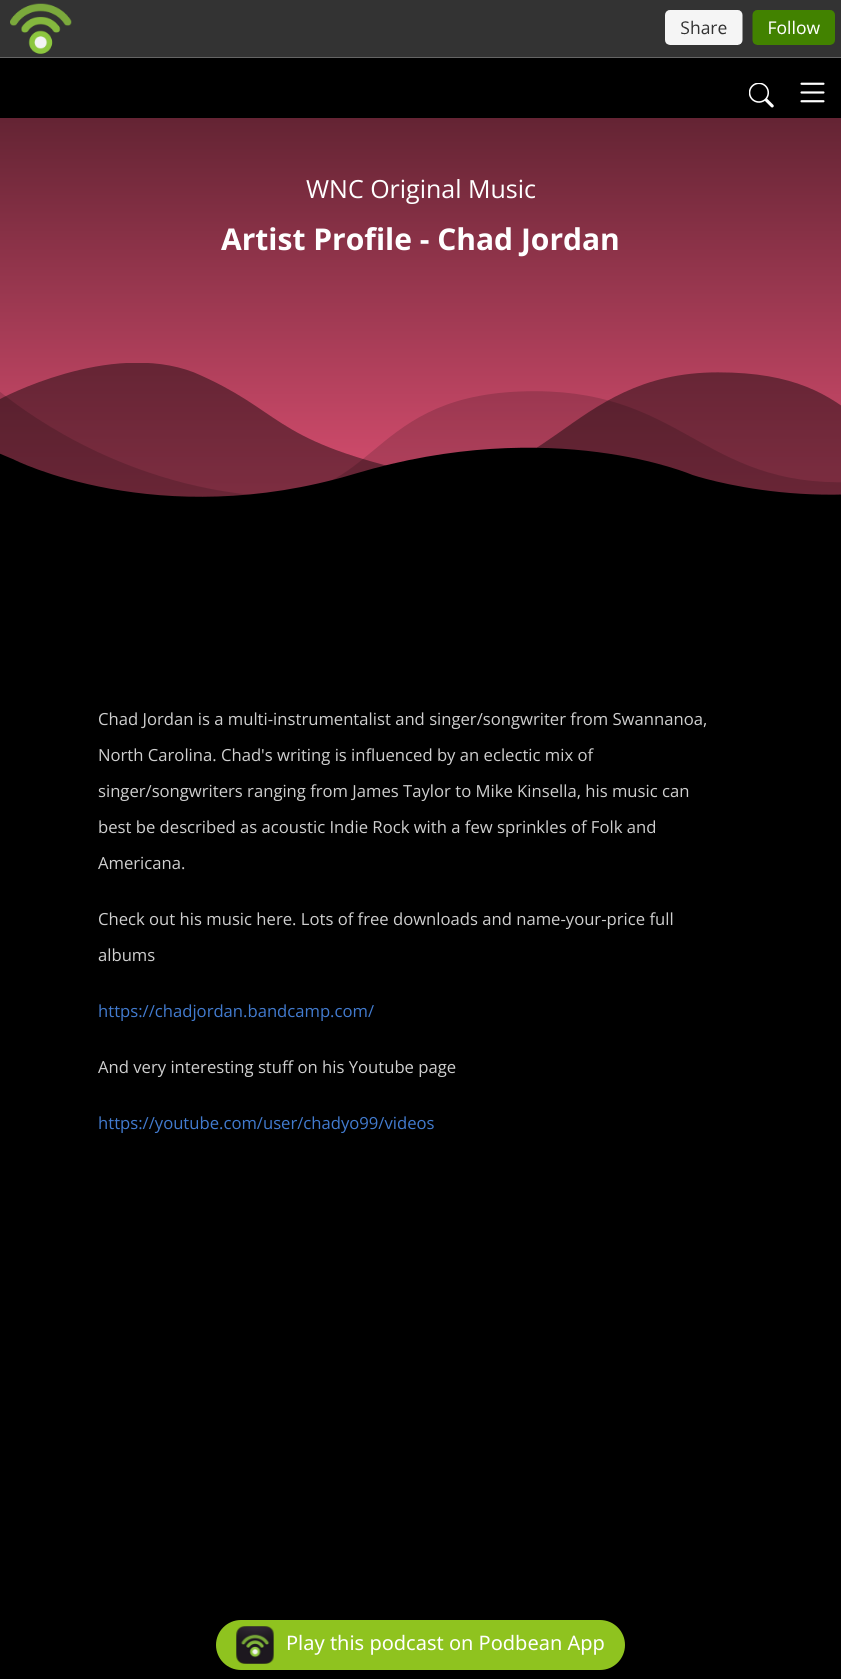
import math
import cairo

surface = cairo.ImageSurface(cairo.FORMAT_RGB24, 841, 1679)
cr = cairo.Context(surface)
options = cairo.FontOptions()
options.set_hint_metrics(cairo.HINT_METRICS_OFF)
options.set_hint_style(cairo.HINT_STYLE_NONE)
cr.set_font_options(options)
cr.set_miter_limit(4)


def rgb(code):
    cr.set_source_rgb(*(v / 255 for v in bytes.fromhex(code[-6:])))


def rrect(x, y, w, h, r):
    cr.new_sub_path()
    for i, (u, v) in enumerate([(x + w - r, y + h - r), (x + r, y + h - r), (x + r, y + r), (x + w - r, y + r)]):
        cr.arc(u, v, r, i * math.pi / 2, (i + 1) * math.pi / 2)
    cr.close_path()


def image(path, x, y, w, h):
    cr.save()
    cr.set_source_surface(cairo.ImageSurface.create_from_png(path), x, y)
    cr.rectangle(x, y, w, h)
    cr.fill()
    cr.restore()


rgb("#000000")
cr.paint()
rgb("#333333")
cr.rectangle(0, 0, 841, 3)
cr.fill()
image("img/1.png", 0, 3, 841, 55)
image("img/2.png", 749, 83, 25, 25)
image("img/3.png", 800, 82, 25, 21)
gradient = cairo.LinearGradient(421, 625, 421, 0)
gradient.add_color_stop_rgba(0, 1, 0.361, 0.518, 1)
gradient.add_color_stop_rgba(1, 0.251, 0.09, 0.129, 1)
cr.set_source(gradient)
cr.rectangle(0, 118, 841, 379)
cr.fill()
image("img/4.png", 0, 363, 841, 262)
rgb("#8fc31f")
rrect(216, 1620, 409, 50, 25)
cr.fill()
image("img/5.png", 236, 1626, 38, 38)
cr.select_font_face("Open Sans")
cr.set_font_size(25)
rgb("#ffffff")
cr.move_to(306, 198)
cr.show_text("WNC Original Music")
cr.select_font_face("Open Sans", cairo.FONT_SLANT_NORMAL, cairo.FONT_WEIGHT_BOLD)
cr.set_font_size(30)
cr.move_to(221, 250)
cr.show_text("Artist Profile - Chad Jordan")
cr.select_font_face("Open Sans")
cr.set_font_size(16.65)
rgb("#cfcfcf")
for x, y, s in [
    (98, 725, "Chad Jordan is a multi-instrumentalist and singer/songwriter from Swannanoa,"),
    (98, 761, "North Carolina. Chad's writing is influenced by an eclectic mix of"),
    (98, 797, "singer/songwriters ranging from James Taylor to Mike Kinsella, his music can"),
    (98, 833, "best be described as acoustic Indie Rock with a few sprinkles of Folk and"),
    (98, 869, "Americana."),
    (98, 925, "Check out his music here. Lots of free downloads and name-your-price full"),
    (98, 961, "albums"),
]:
    cr.move_to(x, y)
    cr.show_text(s)
rgb("#427bcf")
cr.move_to(98, 1017)
cr.show_text("https://chadjordan.bandcamp.com/")
rgb("#cfcfcf")
cr.move_to(98, 1073)
cr.show_text("And very interesting stuff on his Youtube page")
rgb("#427bcf")
cr.move_to(98, 1129)
cr.show_text("https://youtube.com/user/chadyo99/videos")
cr.select_font_face("Noto Sans")
cr.set_font_size(20)
rgb("#ffffff")
cr.move_to(286, 1650)
cr.show_text("Play this podcast on Podbean App")
surface.write_to_png("page.png")
